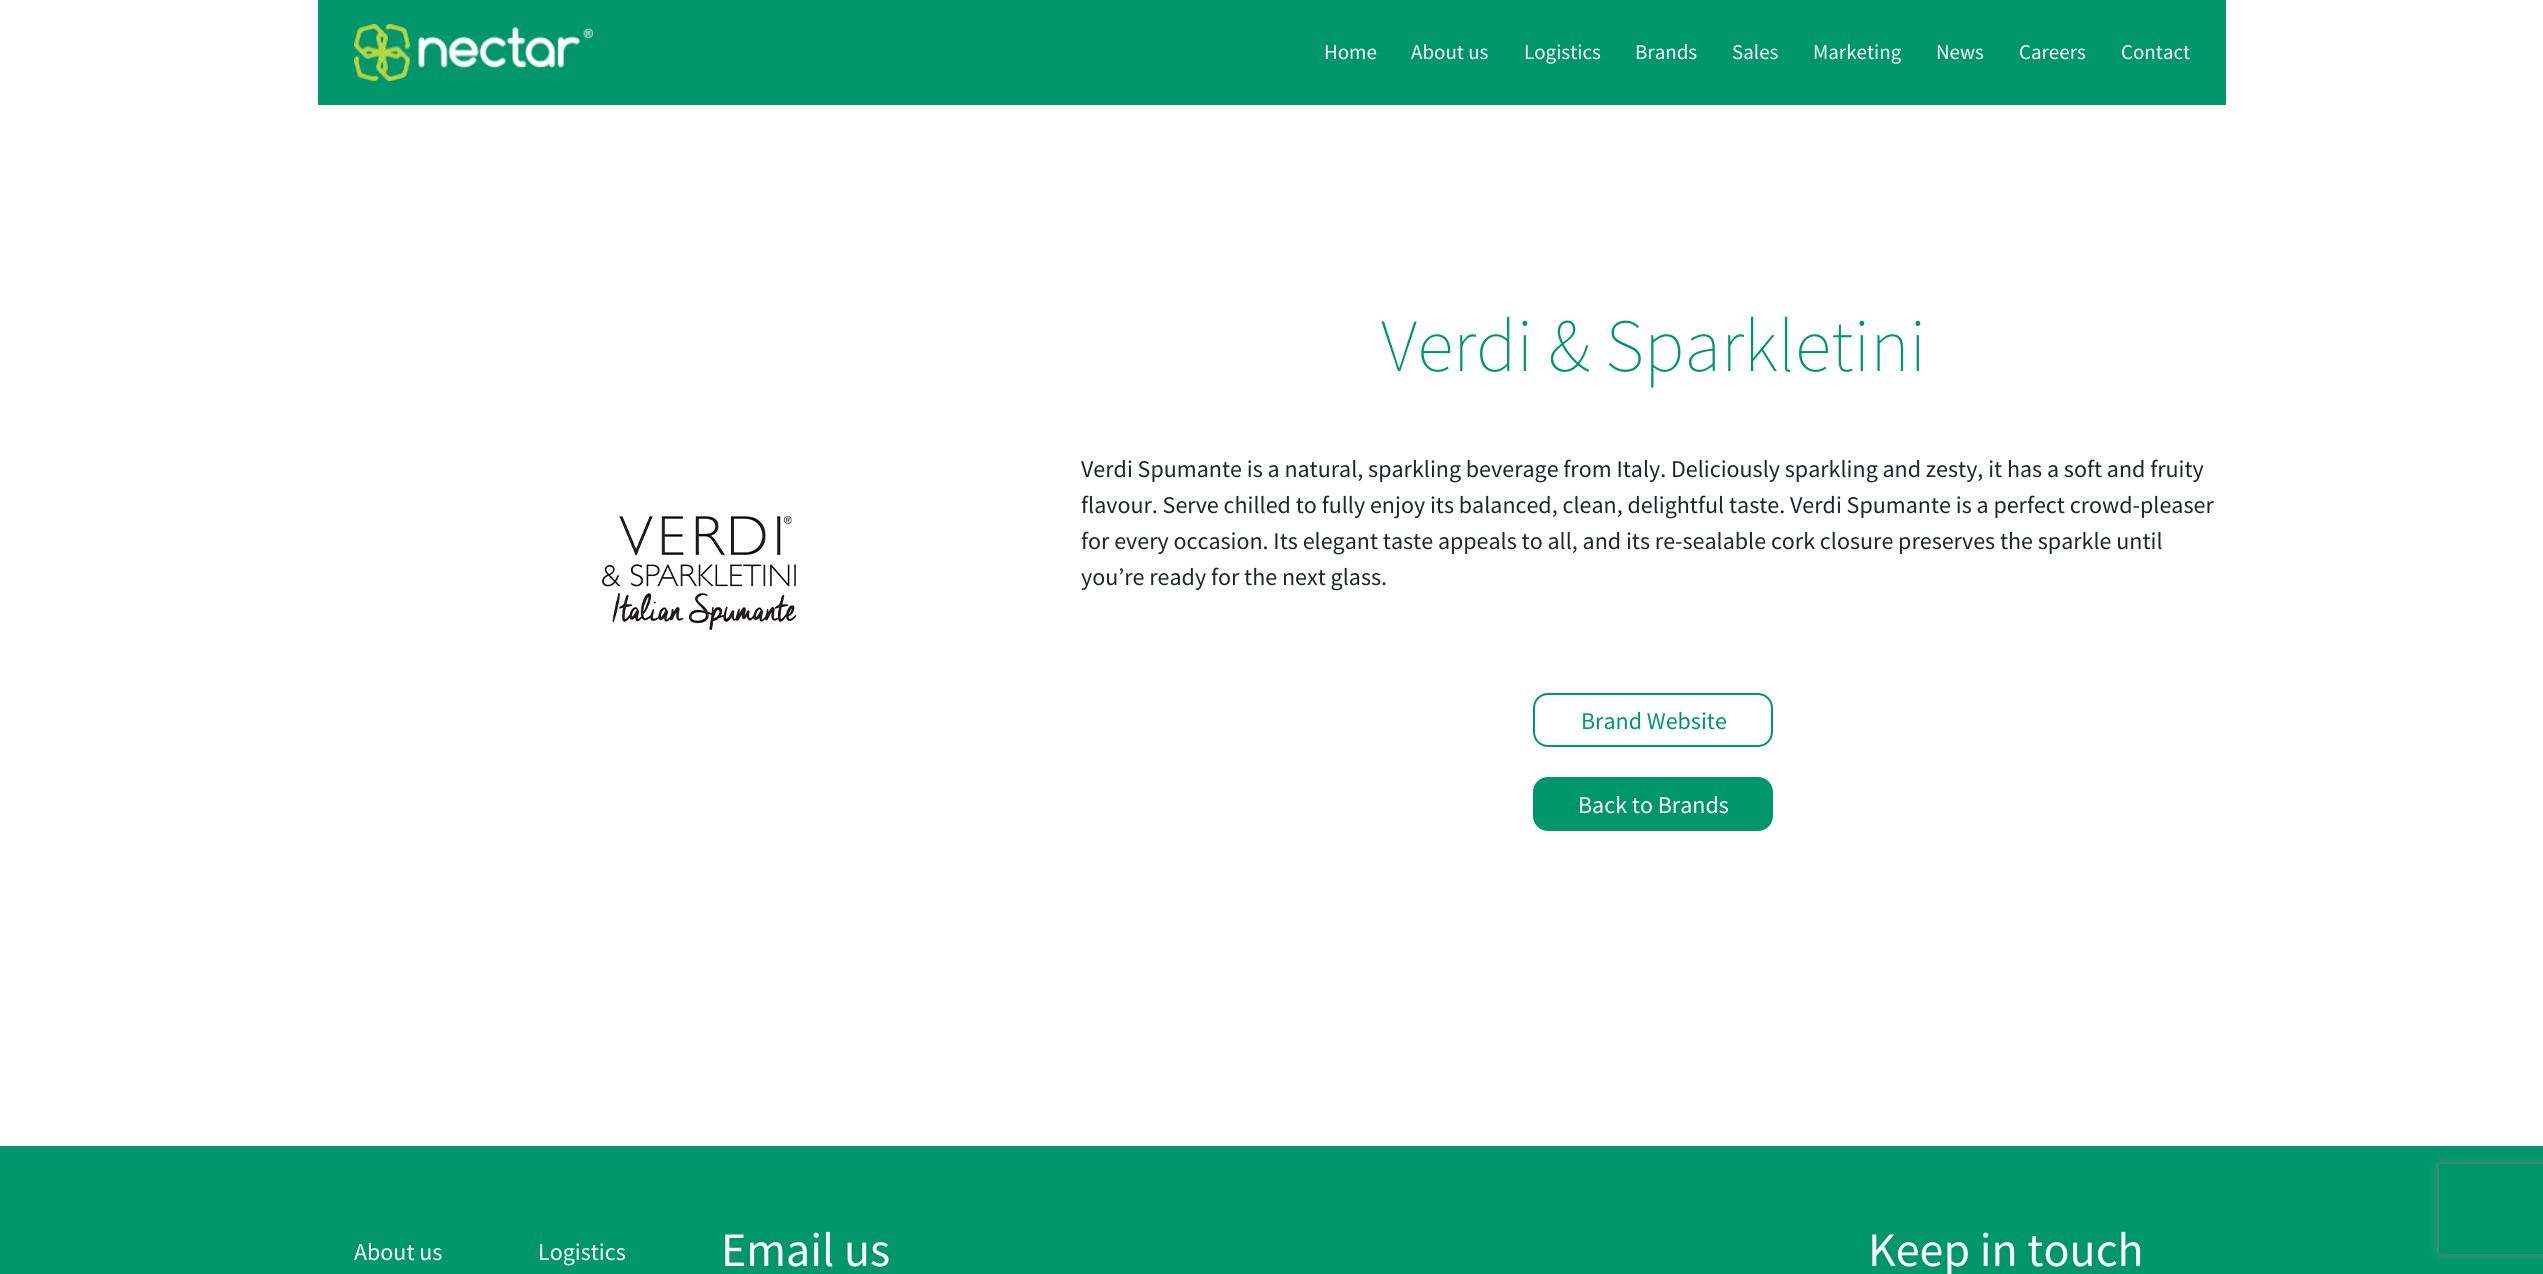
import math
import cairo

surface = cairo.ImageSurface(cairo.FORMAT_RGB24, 2543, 1274)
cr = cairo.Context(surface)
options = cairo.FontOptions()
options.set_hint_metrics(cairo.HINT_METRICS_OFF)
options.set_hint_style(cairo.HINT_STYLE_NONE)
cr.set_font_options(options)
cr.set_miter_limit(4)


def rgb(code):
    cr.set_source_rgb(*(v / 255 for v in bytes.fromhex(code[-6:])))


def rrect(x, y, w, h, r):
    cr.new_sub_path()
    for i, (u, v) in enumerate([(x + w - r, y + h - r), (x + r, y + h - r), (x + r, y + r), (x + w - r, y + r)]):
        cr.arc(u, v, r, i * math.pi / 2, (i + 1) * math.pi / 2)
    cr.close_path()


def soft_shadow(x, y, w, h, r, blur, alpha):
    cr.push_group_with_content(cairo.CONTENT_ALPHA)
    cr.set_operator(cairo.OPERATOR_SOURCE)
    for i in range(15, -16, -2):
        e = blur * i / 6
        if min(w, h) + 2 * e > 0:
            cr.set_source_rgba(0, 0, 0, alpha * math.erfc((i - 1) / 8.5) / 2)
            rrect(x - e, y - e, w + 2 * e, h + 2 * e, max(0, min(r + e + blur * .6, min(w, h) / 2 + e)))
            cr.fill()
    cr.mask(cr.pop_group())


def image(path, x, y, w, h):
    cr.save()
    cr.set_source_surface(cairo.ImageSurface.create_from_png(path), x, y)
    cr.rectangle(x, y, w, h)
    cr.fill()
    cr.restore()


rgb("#ffffff")
cr.paint()
rgb("#00966c")
cr.rectangle(318, 0, 1908, 105)
cr.fill()
image("img/1.png", 354, 24, 239, 57)
image("img/2.png", 602, 516, 194, 114)
rrect(1534, 694, 238, 52, 14)
cr.stroke()
rrect(1534, 778, 238, 52, 14)
cr.fill_preserve()
cr.stroke()
cr.rectangle(0, 1146, 2543, 128)
cr.fill()
cr.save()
cr.set_fill_rule(cairo.FILL_RULE_EVEN_ODD)
cr.new_path()
cr.move_to(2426, 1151)
cr.line_to(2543, 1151)
cr.line_to(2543, 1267)
cr.line_to(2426, 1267)
cr.close_path()
cr.move_to(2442, 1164)
cr.line_to(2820, 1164)
cr.curve_to(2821.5, 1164, 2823, 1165.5, 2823, 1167)
cr.line_to(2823, 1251)
cr.curve_to(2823, 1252.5, 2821.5, 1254, 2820, 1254)
cr.line_to(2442, 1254)
cr.curve_to(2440.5, 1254, 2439, 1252.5, 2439, 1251)
cr.line_to(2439, 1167)
cr.curve_to(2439, 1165.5, 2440.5, 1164, 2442, 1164)
cr.close_path()
cr.clip()
rgb("#808080")
soft_shadow(2439, 1164, 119, 90, 3, 4, 1)
cr.restore()
cr.select_font_face("Source Sans Pro")
cr.set_font_size(21)
rgb("#ffffff")
for x, y, s in [
    (1324, 59, "Home"),
    (1411, 59, "About us"),
    (1524, 59, "Logistics"),
    (1635, 59, "Brands"),
    (1732, 59, "Sales"),
    (1813, 59, "Marketing"),
    (1936, 59, "News"),
    (2019, 59, "Careers"),
    (2121, 59, "Contact"),
]:
    cr.move_to(x, y)
    cr.show_text(s)
cr.select_font_face("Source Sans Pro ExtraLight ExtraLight")
cr.set_font_size(75)
rgb("#00966c")
cr.move_to(1381, 371)
cr.show_text("Verdi & Sparkletini")
cr.select_font_face("Source Sans Pro")
cr.set_font_size(24)
rgb("#212529")
for x, y, s in [
    (1081, 477, "Verdi Spumante is a natural, sparkling beverage from Italy. Deliciously sparkling and zesty, it has a soft and fruity"),
    (1081, 513, "flavour. Serve chilled to fully enjoy its balanced, clean, delightful taste. Verdi Spumante is a perfect crowd-pleaser"),
    (1081, 549, "for every occasion. Its elegant taste appeals to all, and its re-sealable cork closure preserves the sparkle until"),
    (1081, 585, "you’re ready for the next glass."),
]:
    cr.move_to(x, y)
    cr.show_text(s)
rgb("#00966c")
cr.move_to(1581, 729)
cr.show_text("Brand Website")
rgb("#ffffff")
for x, y, s in [
    (1578, 813, "Back to Brands"),
    (354, 1260, "About us"),
    (538, 1260, "Logistics"),
]:
    cr.move_to(x, y)
    cr.show_text(s)
cr.set_font_size(48)
cr.move_to(721, 1266)
cr.show_text("Email us")
cr.move_to(1868, 1266)
cr.show_text("Keep in touch")
surface.write_to_png("page.png")
